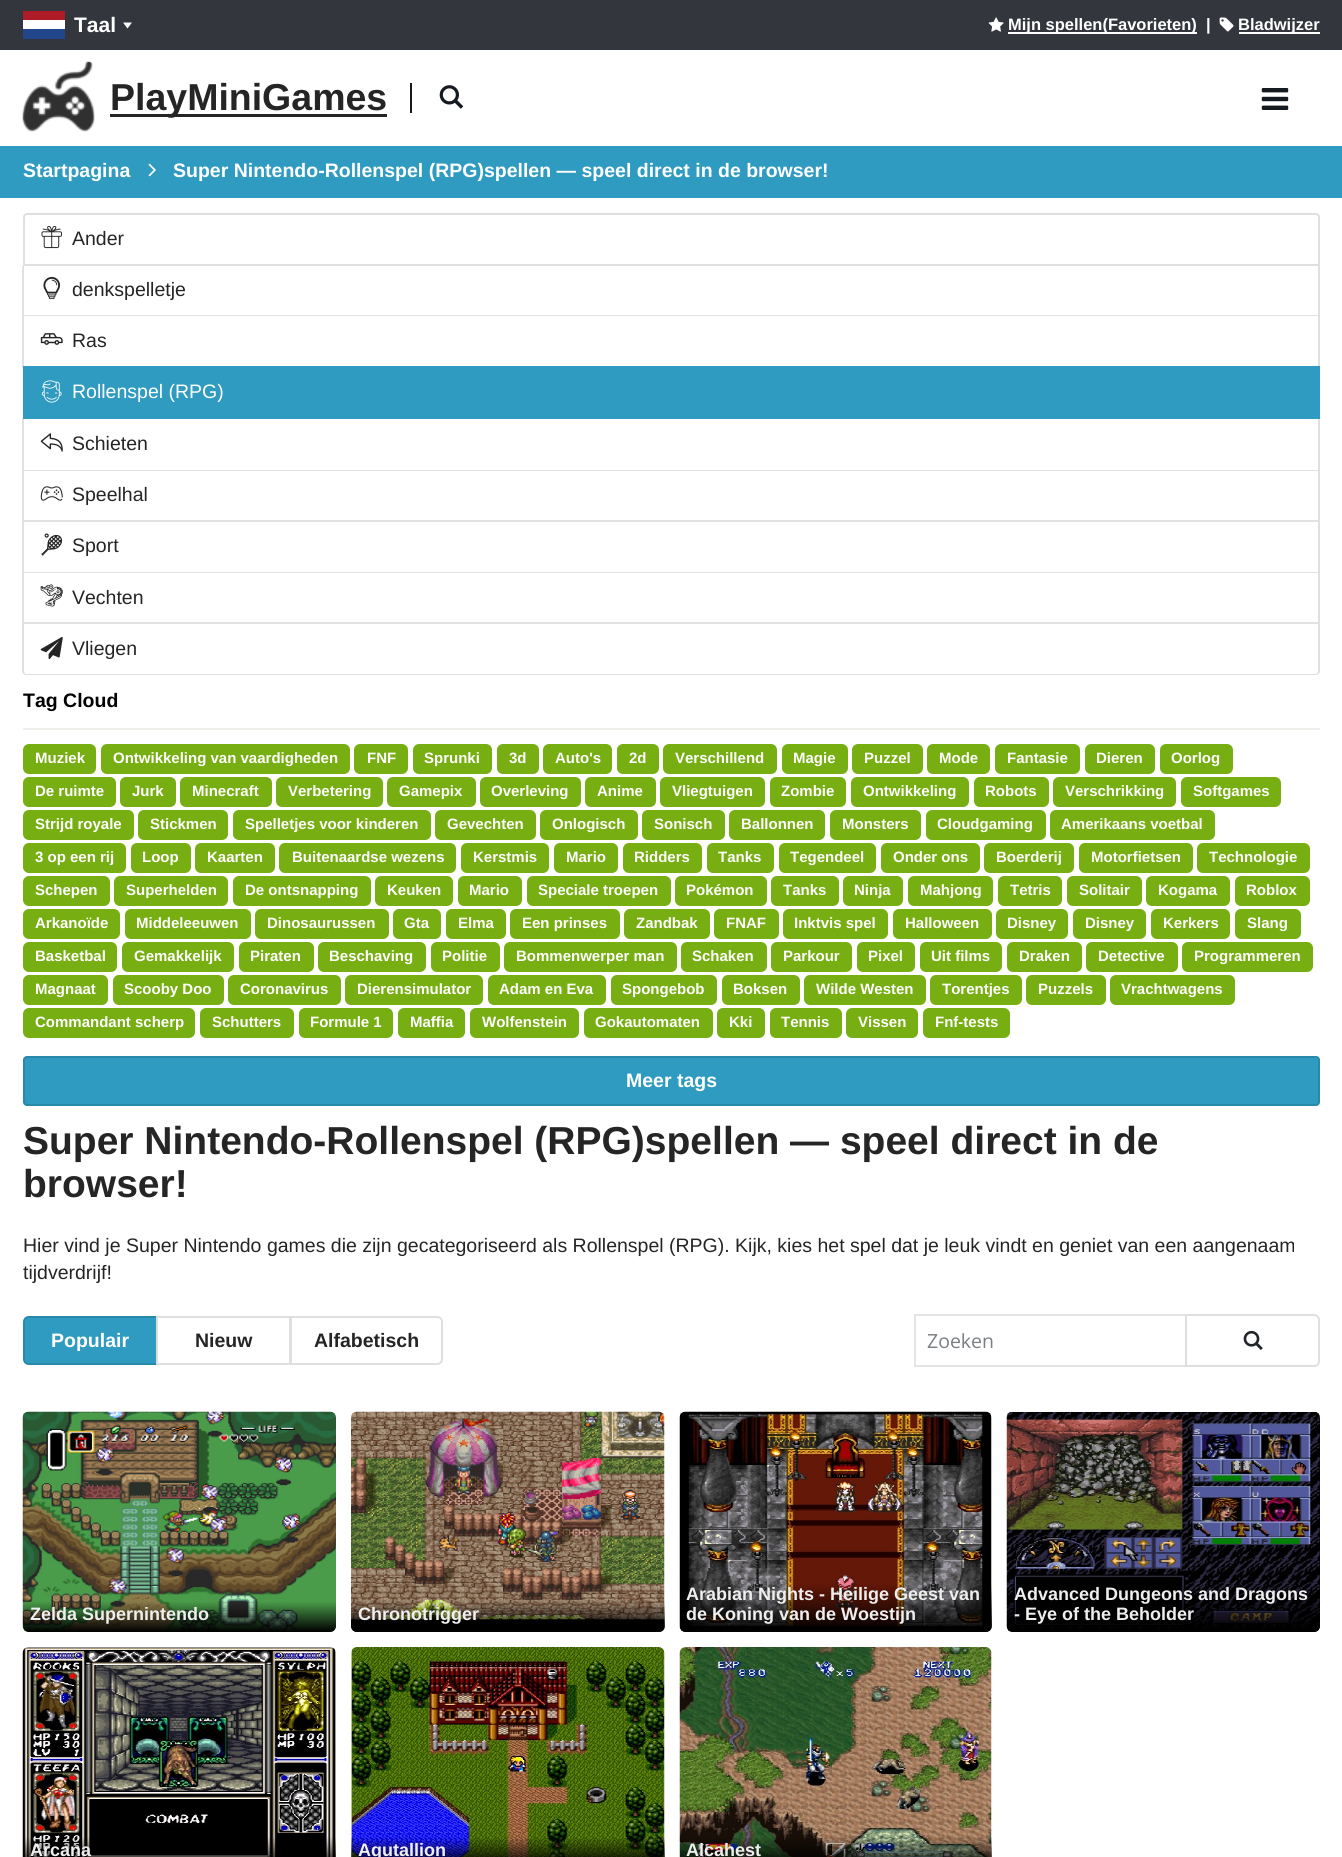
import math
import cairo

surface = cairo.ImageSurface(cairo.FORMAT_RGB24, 1342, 1857)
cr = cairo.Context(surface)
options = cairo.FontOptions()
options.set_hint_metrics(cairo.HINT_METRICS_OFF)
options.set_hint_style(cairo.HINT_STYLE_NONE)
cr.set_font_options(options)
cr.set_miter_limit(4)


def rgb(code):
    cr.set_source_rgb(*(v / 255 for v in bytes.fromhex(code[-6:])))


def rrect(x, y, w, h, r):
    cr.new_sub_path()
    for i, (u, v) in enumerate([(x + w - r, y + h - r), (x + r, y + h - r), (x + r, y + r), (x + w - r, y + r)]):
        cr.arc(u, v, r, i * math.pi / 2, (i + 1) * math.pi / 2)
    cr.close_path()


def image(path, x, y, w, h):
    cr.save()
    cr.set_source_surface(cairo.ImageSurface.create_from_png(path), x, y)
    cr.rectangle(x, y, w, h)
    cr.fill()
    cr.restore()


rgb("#ffffff")
cr.paint()
for x, y, w, h, color in [
    (0, 0, 1342, 50, "#33363c"),
    (23, 29, 42, 10, "#21468b"),
    (23, 20, 42, 9, "#ffffff"),
    (23, 11, 42, 9, "#ae1c28"),
]:
    rgb(color)
    cr.rectangle(x, y, w, h)
    cr.fill()
rgb("#ffffff")
cr.new_path()
cr.move_to(123, 22.5)
cr.line_to(132, 22.5)
cr.line_to(127.5, 28.5)
cr.close_path()
cr.fill()
image("img/1.png", 988, 17, 16, 15)
cr.rectangle(1008, 32, 189, 2)
cr.fill()
image("img/2.png", 1219, 17, 15, 15)
cr.rectangle(1239, 32, 81, 2)
cr.fill()
image("img/3.png", 22, 61, 73, 71)
rgb("#252525")
cr.rectangle(110, 114, 277, 3)
cr.fill()
rgb("#141a1f")
cr.rectangle(410, 83, 2, 30)
cr.fill()
image("img/4.png", 439, 85, 25, 24)
image("img/5.png", 1261, 88, 28, 22)
rgb("#2f9bc1")
cr.rectangle(0, 146, 1342, 52)
cr.fill()
image("img/6.png", 148, 163, 8, 14)
cr.new_path()
cr.move_to(27, 214)
cr.line_to(1316, 214)
cr.curve_to(1317.5, 214, 1319, 215.5, 1319, 217)
cr.line_to(1319, 265)
cr.line_to(24, 265)
cr.line_to(24, 217)
cr.curve_to(24, 215.5, 25.5, 214, 27, 214)
cr.close_path()
rgb("#dfdfdf")
cr.stroke()
image("img/7.png", 41, 225, 21, 24)
cr.new_path()
cr.move_to(1320, 266)
cr.line_to(1320, 316)
cr.line_to(1318, 315)
cr.line_to(1318, 266)
cr.close_path()
cr.fill()
cr.set_source_rgba(0, 0, 0, 0.12)
cr.new_path()
cr.move_to(1320, 316)
cr.line_to(22, 316)
cr.line_to(24, 315)
cr.line_to(1318, 315)
cr.close_path()
cr.fill()
cr.new_path()
cr.move_to(22, 316)
cr.line_to(22, 266)
cr.line_to(24, 266)
cr.line_to(24, 315)
cr.close_path()
cr.fill()
image("img/8.png", 43, 276, 18, 24)
rgb("#dfdfdf")
cr.new_path()
cr.move_to(1320, 316)
cr.line_to(1320, 368)
cr.line_to(1318, 366)
cr.line_to(1318, 316)
cr.close_path()
cr.fill()
cr.set_source_rgba(0, 0, 0, 0.12)
cr.new_path()
cr.move_to(1320, 368)
cr.line_to(22, 368)
cr.line_to(24, 366)
cr.line_to(1318, 366)
cr.close_path()
cr.fill()
cr.new_path()
cr.move_to(22, 368)
cr.line_to(22, 316)
cr.line_to(24, 316)
cr.line_to(24, 366)
cr.close_path()
cr.fill()
image("img/9.png", 40, 333, 23, 12)
rgb("#dfdfdf")
cr.new_path()
cr.move_to(1320, 418)
cr.line_to(1320, 471)
cr.line_to(1318, 470)
cr.line_to(1318, 418)
cr.close_path()
cr.fill()
cr.set_source_rgba(0, 0, 0, 0.12)
cr.new_path()
cr.move_to(1320, 471)
cr.line_to(22, 471)
cr.line_to(24, 470)
cr.line_to(1318, 470)
cr.close_path()
cr.fill()
cr.new_path()
cr.move_to(22, 471)
cr.line_to(22, 418)
cr.line_to(24, 418)
cr.line_to(24, 470)
cr.close_path()
cr.fill()
rgb("#2f9bc1")
cr.rectangle(23, 366, 1297, 53)
cr.fill()
image("img/10.png", 41, 380, 21, 23)
image("img/11.png", 40, 433, 23, 19)
rgb("#dfdfdf")
cr.new_path()
cr.move_to(1320, 471)
cr.line_to(1320, 522)
cr.line_to(1318, 520)
cr.line_to(1318, 471)
cr.close_path()
cr.fill()
cr.set_source_rgba(0, 0, 0, 0.12)
cr.new_path()
cr.move_to(1320, 522)
cr.line_to(22, 522)
cr.line_to(24, 520)
cr.line_to(1318, 520)
cr.close_path()
cr.fill()
cr.new_path()
cr.move_to(22, 522)
cr.line_to(22, 471)
cr.line_to(24, 471)
cr.line_to(24, 520)
cr.close_path()
cr.fill()
image("img/12.png", 40, 486, 23, 15)
rgb("#dfdfdf")
cr.new_path()
cr.move_to(1320, 522)
cr.line_to(1320, 573)
cr.line_to(1318, 572)
cr.line_to(1318, 522)
cr.close_path()
cr.fill()
cr.set_source_rgba(0, 0, 0, 0.12)
cr.new_path()
cr.move_to(1320, 573)
cr.line_to(22, 573)
cr.line_to(24, 572)
cr.line_to(1318, 572)
cr.close_path()
cr.fill()
cr.new_path()
cr.move_to(22, 573)
cr.line_to(22, 522)
cr.line_to(24, 522)
cr.line_to(24, 572)
cr.close_path()
cr.fill()
image("img/13.png", 41, 533, 22, 23)
rgb("#dfdfdf")
cr.new_path()
cr.move_to(1320, 573)
cr.line_to(1320, 624)
cr.line_to(1318, 622)
cr.line_to(1318, 573)
cr.close_path()
cr.fill()
cr.set_source_rgba(0, 0, 0, 0.12)
cr.new_path()
cr.move_to(1320, 624)
cr.line_to(22, 624)
cr.line_to(24, 622)
cr.line_to(1318, 622)
cr.close_path()
cr.fill()
cr.new_path()
cr.move_to(22, 624)
cr.line_to(22, 573)
cr.line_to(24, 573)
cr.line_to(24, 622)
cr.close_path()
cr.fill()
image("img/14.png", 40, 584, 23, 23)
rgb("#dfdfdf")
cr.set_fill_rule(cairo.FILL_RULE_EVEN_ODD)
cr.new_path()
cr.move_to(22, 624)
cr.line_to(1320, 624)
cr.line_to(1320, 671)
cr.curve_to(1320, 673, 1318, 675, 1316, 675)
cr.line_to(26, 675)
cr.curve_to(24, 675, 22, 673, 22, 671)
cr.close_path()
cr.move_to(24, 624)
cr.line_to(1318, 624)
cr.line_to(1318, 671)
cr.curve_to(1318, 672, 1317, 674, 1316, 674)
cr.line_to(26, 674)
cr.curve_to(25, 674, 24, 672, 24, 671)
cr.close_path()
cr.fill()
image("img/15.png", 40, 637, 23, 23)
rgb("#f0f0ed")
cr.rectangle(23, 728, 1297, 2)
cr.fill()
rgb("#77af12")
rrect(23, 744, 73, 30, 6)
cr.fill()
rrect(101, 744, 249, 30, 6)
cr.fill()
rrect(354, 744, 54, 30, 6)
cr.fill()
rrect(413, 744, 79, 30, 6)
cr.fill()
rrect(497, 744, 42, 30, 6)
cr.fill()
rrect(543, 744, 69, 30, 6)
cr.fill()
rrect(617, 744, 42, 30, 6)
cr.fill()
rrect(663, 744, 114, 30, 6)
cr.fill()
rrect(782, 744, 66, 30, 6)
cr.fill()
rrect(852, 744, 71, 30, 6)
cr.fill()
rrect(927, 744, 63, 30, 6)
cr.fill()
rrect(995, 744, 85, 30, 6)
cr.fill()
rrect(1085, 744, 70, 30, 6)
cr.fill()
rrect(1160, 744, 73, 30, 6)
cr.fill()
rrect(23, 777, 93, 30, 6)
cr.fill()
rrect(120, 777, 56, 30, 6)
cr.fill()
rrect(180, 777, 92, 30, 6)
cr.fill()
rrect(276, 777, 107, 30, 6)
cr.fill()
rrect(387, 777, 89, 30, 6)
cr.fill()
rrect(480, 777, 101, 30, 6)
cr.fill()
rrect(585, 777, 71, 30, 6)
cr.fill()
rrect(660, 777, 105, 30, 6)
cr.fill()
rrect(770, 777, 76, 30, 6)
cr.fill()
rrect(851, 777, 118, 30, 6)
cr.fill()
rrect(974, 777, 75, 30, 6)
cr.fill()
rrect(1053, 777, 123, 30, 6)
cr.fill()
rrect(1181, 777, 100, 30, 6)
cr.fill()
rrect(23, 810, 111, 30, 6)
cr.fill()
rrect(138, 810, 90, 30, 6)
cr.fill()
rrect(233, 810, 198, 30, 6)
cr.fill()
rrect(435, 810, 101, 30, 6)
cr.fill()
rrect(540, 810, 98, 30, 6)
cr.fill()
rrect(642, 810, 83, 30, 6)
cr.fill()
rrect(729, 810, 96, 30, 6)
cr.fill()
rrect(830, 810, 91, 30, 6)
cr.fill()
rrect(926, 810, 120, 30, 6)
cr.fill()
rrect(1050, 810, 165, 30, 6)
cr.fill()
rrect(23, 843, 103, 30, 6)
cr.fill()
rrect(131, 843, 60, 30, 6)
cr.fill()
rrect(195, 843, 80, 30, 6)
cr.fill()
rrect(279, 843, 177, 30, 6)
cr.fill()
rrect(461, 843, 88, 30, 6)
cr.fill()
rrect(554, 843, 64, 30, 6)
cr.fill()
rrect(623, 843, 79, 30, 6)
cr.fill()
rrect(707, 843, 67, 30, 6)
cr.fill()
rrect(779, 843, 97, 30, 6)
cr.fill()
rrect(881, 843, 99, 30, 6)
cr.fill()
rrect(984, 843, 90, 30, 6)
cr.fill()
rrect(1079, 843, 114, 30, 6)
cr.fill()
rrect(1197, 843, 113, 30, 6)
cr.fill()
rrect(23, 876, 87, 30, 6)
cr.fill()
rrect(114, 876, 114, 30, 6)
cr.fill()
rrect(233, 876, 138, 30, 6)
cr.fill()
rrect(375, 876, 78, 30, 6)
cr.fill()
rrect(458, 876, 64, 30, 6)
cr.fill()
rrect(527, 876, 144, 30, 6)
cr.fill()
rrect(675, 876, 92, 30, 6)
cr.fill()
rrect(771, 876, 68, 30, 6)
cr.fill()
rrect(843, 876, 60, 30, 6)
cr.fill()
rrect(908, 876, 85, 30, 6)
cr.fill()
rrect(998, 876, 64, 30, 6)
cr.fill()
rrect(1067, 876, 75, 30, 6)
cr.fill()
rrect(1146, 876, 84, 30, 6)
cr.fill()
rrect(1235, 876, 75, 30, 6)
cr.fill()
rrect(23, 909, 97, 30, 6)
cr.fill()
rrect(125, 909, 126, 30, 6)
cr.fill()
rrect(255, 909, 134, 30, 6)
cr.fill()
rrect(393, 909, 48, 30, 6)
cr.fill()
rrect(446, 909, 60, 30, 6)
cr.fill()
rrect(510, 909, 110, 30, 6)
cr.fill()
rrect(624, 909, 86, 30, 6)
cr.fill()
rrect(714, 909, 65, 30, 6)
cr.fill()
rrect(783, 909, 105, 30, 6)
cr.fill()
rrect(893, 909, 99, 30, 6)
cr.fill()
rrect(996, 909, 72, 30, 6)
cr.fill()
rrect(1073, 909, 73, 30, 6)
cr.fill()
rrect(1151, 909, 79, 30, 6)
cr.fill()
rrect(1235, 909, 66, 30, 6)
cr.fill()
rrect(23, 942, 94, 30, 6)
cr.fill()
rrect(122, 942, 112, 30, 6)
cr.fill()
rrect(239, 942, 75, 30, 6)
cr.fill()
rrect(318, 942, 108, 30, 6)
cr.fill()
rrect(431, 942, 69, 30, 6)
cr.fill()
rrect(504, 942, 173, 30, 6)
cr.fill()
rrect(681, 942, 86, 30, 6)
cr.fill()
rrect(771, 942, 81, 30, 6)
cr.fill()
rrect(857, 942, 58, 30, 6)
cr.fill()
rrect(920, 942, 82, 30, 6)
cr.fill()
rrect(1007, 942, 75, 30, 6)
cr.fill()
rrect(1086, 942, 92, 30, 6)
cr.fill()
rrect(1182, 942, 131, 30, 6)
cr.fill()
rrect(23, 975, 85, 30, 6)
cr.fill()
rrect(113, 975, 111, 30, 6)
cr.fill()
rrect(228, 975, 113, 30, 6)
cr.fill()
rrect(345, 975, 138, 30, 6)
cr.fill()
rrect(488, 975, 118, 30, 6)
cr.fill()
rrect(611, 975, 106, 30, 6)
cr.fill()
rrect(722, 975, 78, 30, 6)
cr.fill()
rrect(804, 975, 122, 30, 6)
cr.fill()
rrect(930, 975, 92, 30, 6)
cr.fill()
rrect(1026, 975, 80, 30, 6)
cr.fill()
rrect(1110, 975, 125, 30, 6)
cr.fill()
rrect(23, 1008, 172, 30, 6)
cr.fill()
rrect(200, 1008, 94, 30, 6)
cr.fill()
rrect(299, 1008, 94, 30, 6)
cr.fill()
rrect(398, 1008, 67, 30, 6)
cr.fill()
rrect(470, 1008, 109, 30, 6)
cr.fill()
rrect(584, 1008, 129, 30, 6)
cr.fill()
rrect(717, 1008, 48, 30, 6)
cr.fill()
rrect(770, 1008, 72, 30, 6)
cr.fill()
rrect(846, 1008, 72, 30, 6)
cr.fill()
rrect(923, 1008, 87, 30, 6)
cr.fill()
rgb("#2f9bc1")
rrect(23, 1056, 1297, 50, 4)
cr.fill()
rrect(24, 1057, 1295, 48, 3)
cr.set_source_rgba(0, 0, 0, 0.12)
cr.stroke()
rgb("#2f9bc1")
cr.new_path()
cr.move_to(29, 1316)
cr.line_to(158, 1316)
cr.line_to(158, 1365)
cr.line_to(29, 1365)
cr.curve_to(25.5, 1365, 23, 1362.5, 23, 1359)
cr.line_to(23, 1322)
cr.curve_to(23, 1318.5, 25.5, 1316, 29, 1316)
cr.close_path()
cr.fill()
cr.new_path()
cr.move_to(29, 1317)
cr.line_to(157, 1317)
cr.line_to(157, 1364)
cr.line_to(29, 1364)
cr.curve_to(26, 1364, 24, 1362, 24, 1359)
cr.line_to(24, 1322)
cr.curve_to(24, 1319, 26, 1317, 29, 1317)
cr.close_path()
cr.set_source_rgba(0, 0, 0, 0.12)
cr.stroke()
cr.rectangle(157, 1317, 133, 47)
rgb("#dfdfdf")
cr.stroke()
rgb("#ffffff")
cr.new_path()
cr.move_to(291, 1317)
cr.line_to(437, 1317)
cr.curve_to(440, 1317, 442, 1319, 442, 1322)
cr.line_to(442, 1359)
cr.curve_to(442, 1362, 440, 1364, 437, 1364)
cr.line_to(291, 1364)
cr.close_path()
cr.fill_preserve()
rgb("#dfdfdf")
cr.stroke()
cr.rectangle(915, 1315, 271, 51)
rgb("#e4e4e4")
cr.stroke()
rgb("#ffffff")
cr.new_path()
cr.move_to(1186, 1315)
cr.line_to(1314, 1315)
cr.curve_to(1317, 1315, 1319, 1317, 1319, 1320)
cr.line_to(1319, 1361)
cr.curve_to(1319, 1364, 1317, 1366, 1314, 1366)
cr.line_to(1186, 1366)
cr.close_path()
cr.fill_preserve()
rgb("#dfdfdf")
cr.stroke()
image("img/16.png", 1243, 1330, 20, 20)
image("img/17.png", 22, 1411, 314, 221)
gradient = cairo.LinearGradient(179, 1598, 179, 1632)
gradient.add_color_stop_rgba(0.1, 0, 0, 0, 0)
gradient.add_color_stop_rgba(1, 0, 0, 0, 1)
cr.set_source(gradient)
rrect(23, 1598, 313, 34, 6)
cr.fill()
image("img/18.png", 351, 1411, 314, 221)
gradient = cairo.LinearGradient(508, 1598, 508, 1632)
gradient.add_color_stop_rgba(0.1, 0, 0, 0, 0)
gradient.add_color_stop_rgba(1, 0, 0, 0, 1)
cr.set_source(gradient)
rrect(351, 1598, 314, 34, 6)
cr.fill()
image("img/19.png", 679, 1411, 313, 221)
gradient = cairo.LinearGradient(836, 1578, 836, 1632)
gradient.add_color_stop_rgba(0.1, 0, 0, 0, 0)
gradient.add_color_stop_rgba(1, 0, 0, 0, 1)
cr.set_source(gradient)
rrect(680, 1578, 312, 54, 6)
cr.fill()
image("img/20.png", 1006, 1411, 314, 221)
gradient = cairo.LinearGradient(1163, 1578, 1163, 1632)
gradient.add_color_stop_rgba(0.1, 0, 0, 0, 0)
gradient.add_color_stop_rgba(1, 0, 0, 0, 1)
cr.set_source(gradient)
rrect(1007, 1578, 313, 54, 6)
cr.fill()
image("img/21.png", 22, 1647, 314, 210)
image("img/22.png", 351, 1647, 314, 210)
gradient = cairo.LinearGradient(508, 1833, 508, 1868)
gradient.add_color_stop_rgba(0.1, 0, 0, 0, 0)
gradient.add_color_stop_rgba(1, 0, 0, 0, 1)
cr.set_source(gradient)
cr.rectangle(351, 1837, 314, 20)
cr.fill()
image("img/23.png", 679, 1647, 313, 210)
gradient = cairo.LinearGradient(836, 1833, 836, 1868)
gradient.add_color_stop_rgba(0.1, 0, 0, 0, 0)
gradient.add_color_stop_rgba(1, 0, 0, 0, 1)
cr.set_source(gradient)
cr.rectangle(680, 1837, 312, 20)
cr.fill()
cr.select_font_face("Liberation Sans", cairo.FONT_SLANT_NORMAL, cairo.FONT_WEIGHT_BOLD)
cr.set_font_size(21)
rgb("#ffffff")
cr.move_to(74, 32)
cr.show_text("Taal")
cr.set_font_size(16.5)
for x, y, s in [
    (1008, 30, "Mijn spellen(Favorieten)"),
    (1206, 30, "|"),
    (1238, 30, "Bladwijzer"),
]:
    cr.move_to(x, y)
    cr.show_text(s)
cr.set_font_size(37.5)
rgb("#252525")
cr.move_to(110, 110)
cr.show_text("PlayMiniGames")
cr.set_font_size(19.5)
rgb("#ffffff")
cr.move_to(23, 177)
cr.show_text("Startpagina")
cr.move_to(173, 177)
cr.show_text("Super Nintendo-Rollenspel (RPG)spellen — speel direct in de browser!")
cr.select_font_face("Liberation Sans")
rgb("#252525")
for x, y, s in [
    (72, 245, "Ander"),
    (72, 296, "denkspelletje"),
    (72, 347, "Ras"),
]:
    cr.move_to(x, y)
    cr.show_text(s)
rgb("#ffffff")
cr.move_to(72, 398)
cr.show_text("Rollenspel (RPG)")
rgb("#252525")
for x, y, s in [
    (72, 450, "Schieten"),
    (72, 501, "Speelhal"),
    (72, 552, "Sport"),
    (72, 604, "Vechten"),
    (72, 655, "Vliegen"),
]:
    cr.move_to(x, y)
    cr.show_text(s)
cr.select_font_face("Liberation Sans", cairo.FONT_SLANT_NORMAL, cairo.FONT_WEIGHT_BOLD)
rgb("#000000")
cr.move_to(23, 707)
cr.show_text("Tag Cloud")
cr.set_font_size(15)
rgb("#ffffff")
for x, y, s in [
    (35, 763, "Muziek"),
    (113, 763, "Ontwikkeling van vaardigheden"),
    (367, 763, "FNF"),
    (424, 763, "Sprunki"),
    (509, 763, "3d"),
    (555, 763, "Auto's"),
    (629, 763, "2d"),
    (675, 763, "Verschillend"),
    (793, 763, "Magie"),
    (864, 763, "Puzzel"),
    (939, 763, "Mode"),
    (1007, 763, "Fantasie"),
    (1096, 763, "Dieren"),
    (1171, 763, "Oorlog"),
    (35, 796, "De ruimte"),
    (132, 796, "Jurk"),
    (192, 796, "Minecraft"),
    (288, 796, "Verbetering"),
    (399, 796, "Gamepix"),
    (491, 796, "Overleving"),
    (597, 796, "Anime"),
    (672, 796, "Vliegtuigen"),
    (781, 796, "Zombie"),
    (863, 796, "Ontwikkeling"),
    (985, 796, "Robots"),
    (1065, 796, "Verschrikking"),
    (1193, 796, "Softgames"),
    (35, 829, "Strijd royale"),
    (150, 829, "Stickmen"),
    (245, 829, "Spelletjes voor kinderen"),
    (447, 829, "Gevechten"),
    (552, 829, "Onlogisch"),
    (654, 829, "Sonisch"),
    (741, 829, "Ballonnen"),
    (842, 829, "Monsters"),
    (937, 829, "Cloudgaming"),
    (1061, 829, "Amerikaans voetbal"),
    (35, 862, "3 op een rij"),
    (142, 862, "Loop"),
    (207, 862, "Kaarten"),
    (292, 862, "Buitenaardse wezens"),
    (473, 862, "Kerstmis"),
    (566, 862, "Mario"),
    (634, 862, "Ridders"),
    (718, 862, "Tanks"),
    (790, 862, "Tegendeel"),
    (893, 862, "Onder ons"),
    (996, 862, "Boerderij"),
    (1091, 862, "Motorfietsen"),
    (1209, 862, "Technologie"),
    (35, 895, "Schepen"),
    (126, 895, "Superhelden"),
    (245, 895, "De ontsnapping"),
    (387, 895, "Keuken"),
    (469, 895, "Mario"),
    (538, 895, "Speciale troepen"),
    (686, 895, "Pokémon"),
    (783, 895, "Tanks"),
    (854, 895, "Ninja"),
    (920, 895, "Mahjong"),
    (1010, 895, "Tetris"),
    (1079, 895, "Solitair"),
    (1158, 895, "Kogama"),
    (1246, 895, "Roblox"),
    (35, 928, "Arkanoïde"),
    (136, 928, "Middeleeuwen"),
    (267, 928, "Dinosaurussen"),
    (404, 928, "Gta"),
    (458, 928, "Elma"),
    (522, 928, "Een prinses"),
    (636, 928, "Zandbak"),
    (726, 928, "FNAF"),
    (794, 928, "Inktvis spel"),
    (905, 928, "Halloween"),
    (1007, 928, "Disney"),
    (1085, 928, "Disney"),
    (1163, 928, "Kerkers"),
    (1247, 928, "Slang"),
    (35, 961, "Basketbal"),
    (134, 961, "Gemakkelijk"),
    (250, 961, "Piraten"),
    (329, 961, "Beschaving"),
    (442, 961, "Politie"),
    (516, 961, "Bommenwerper man"),
    (692, 961, "Schaken"),
    (783, 961, "Parkour"),
    (868, 961, "Pixel"),
    (931, 961, "Uit films"),
    (1019, 961, "Draken"),
    (1098, 961, "Detective"),
    (1194, 961, "Programmeren"),
    (35, 994, "Magnaat"),
    (124, 994, "Scooby Doo"),
    (240, 994, "Coronavirus"),
    (357, 994, "Dierensimulator"),
    (499, 994, "Adam en Eva"),
    (622, 994, "Spongebob"),
    (733, 994, "Boksen"),
    (816, 994, "Wilde Westen"),
    (942, 994, "Torentjes"),
    (1038, 994, "Puzzels"),
    (1121, 994, "Vrachtwagens"),
    (35, 1027, "Commandant scherp"),
    (212, 1027, "Schutters"),
    (310, 1027, "Formule 1"),
    (410, 1027, "Maffia"),
    (482, 1027, "Wolfenstein"),
    (595, 1027, "Gokautomaten"),
    (729, 1027, "Kki"),
    (781, 1027, "Tennis"),
    (858, 1027, "Vissen"),
    (935, 1027, "Fnf-tests"),
]:
    cr.move_to(x, y)
    cr.show_text(s)
cr.set_font_size(19.5)
cr.move_to(626, 1087)
cr.show_text("Meer tags")
cr.set_font_size(39)
rgb("#252525")
cr.move_to(23, 1154)
cr.show_text("Super Nintendo-Rollenspel (RPG)spellen — speel direct in de")
cr.move_to(23, 1197)
cr.show_text("browser!")
cr.select_font_face("Liberation Sans")
cr.set_font_size(19.5)
cr.move_to(23, 1252)
cr.show_text("Hier vind je Super Nintendo games die zijn gecategoriseerd als Rollenspel (RPG). Kijk, kies het spel dat je leuk vindt en geniet van een aangenaam")
cr.move_to(23, 1279)
cr.show_text("tijdverdrijf!")
cr.select_font_face("Liberation Sans", cairo.FONT_SLANT_NORMAL, cairo.FONT_WEIGHT_BOLD)
rgb("#ffffff")
cr.move_to(51, 1347)
cr.show_text("Populair")
rgb("#252525")
cr.move_to(195, 1347)
cr.show_text("Nieuw")
cr.move_to(314, 1347)
cr.show_text("Alfabetisch")
cr.select_font_face("Open Sans")
rgb("#7b7f83")
cr.move_to(927, 1348)
cr.show_text("Zoeken")
cr.select_font_face("Liberation Sans", cairo.FONT_SLANT_NORMAL, cairo.FONT_WEIGHT_BOLD)
cr.set_font_size(18)
rgb("#eeeeee")
for x, y, s in [
    (30, 1620, "Zelda Supernintendo"),
    (358, 1620, "Chronotrigger"),
    (686, 1600, "Arabian Nights - Heilige Geest van"),
    (686, 1620, "de Koning van de Woestijn"),
    (1014, 1600, "Advanced Dungeons and Dragons"),
    (1014, 1620, "- Eye of the Beholder"),
    (30, 1856, "Arcana"),
    (358, 1856, "Aqutallion"),
    (686, 1856, "Alcahest"),
]:
    cr.move_to(x, y)
    cr.show_text(s)
surface.write_to_png("page.png")
